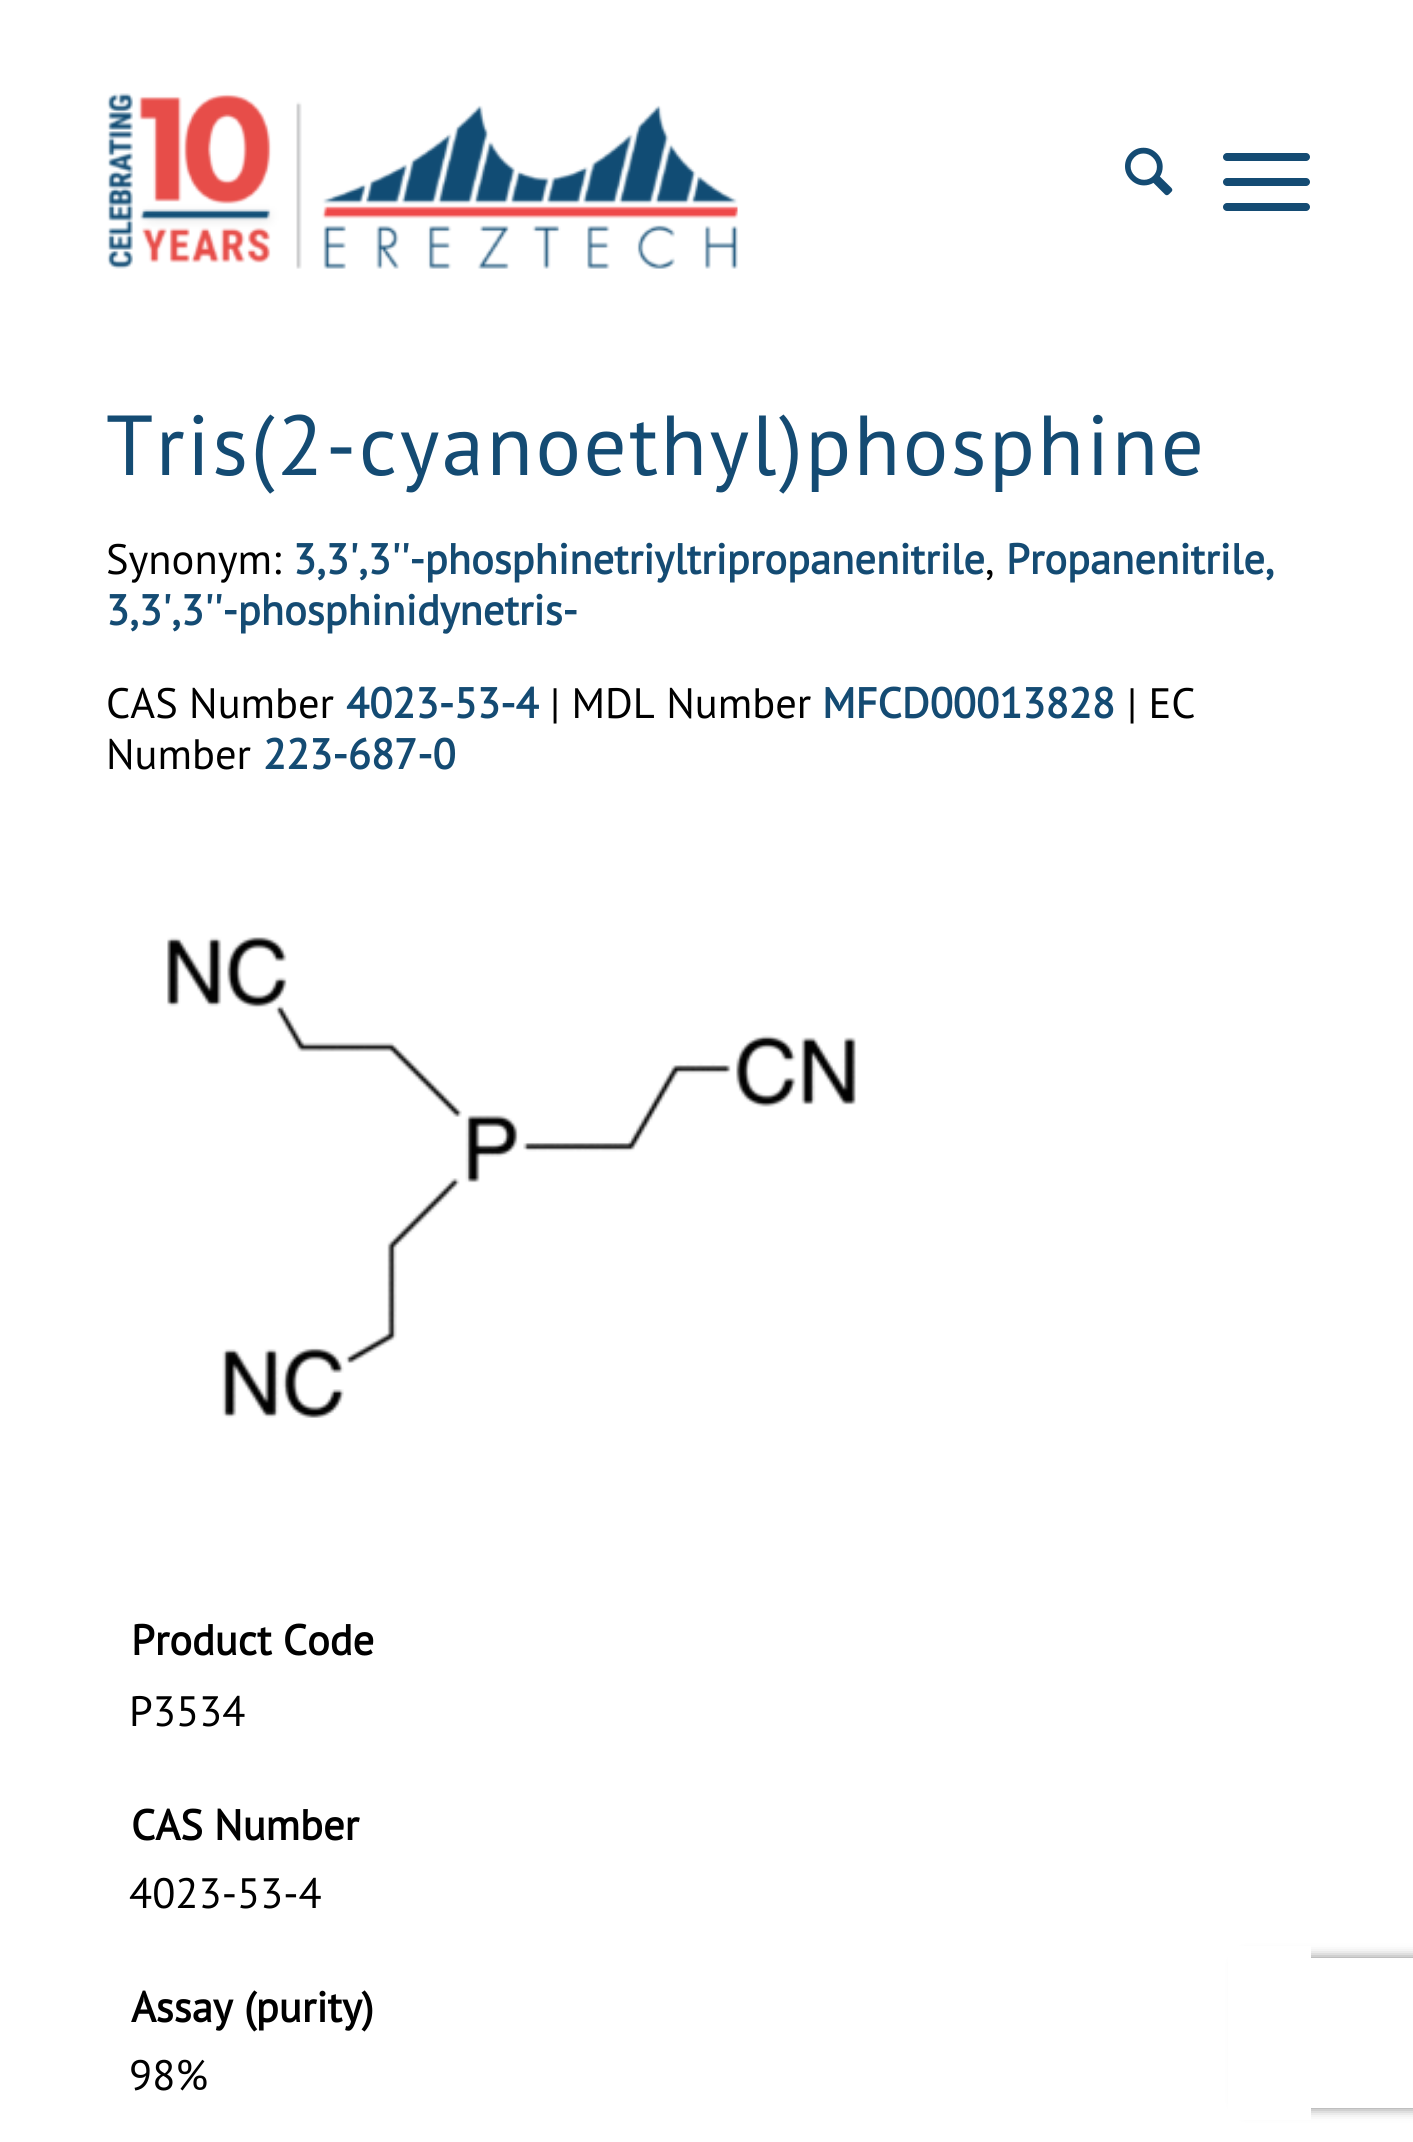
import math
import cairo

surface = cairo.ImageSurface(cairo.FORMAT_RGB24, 1413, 2142)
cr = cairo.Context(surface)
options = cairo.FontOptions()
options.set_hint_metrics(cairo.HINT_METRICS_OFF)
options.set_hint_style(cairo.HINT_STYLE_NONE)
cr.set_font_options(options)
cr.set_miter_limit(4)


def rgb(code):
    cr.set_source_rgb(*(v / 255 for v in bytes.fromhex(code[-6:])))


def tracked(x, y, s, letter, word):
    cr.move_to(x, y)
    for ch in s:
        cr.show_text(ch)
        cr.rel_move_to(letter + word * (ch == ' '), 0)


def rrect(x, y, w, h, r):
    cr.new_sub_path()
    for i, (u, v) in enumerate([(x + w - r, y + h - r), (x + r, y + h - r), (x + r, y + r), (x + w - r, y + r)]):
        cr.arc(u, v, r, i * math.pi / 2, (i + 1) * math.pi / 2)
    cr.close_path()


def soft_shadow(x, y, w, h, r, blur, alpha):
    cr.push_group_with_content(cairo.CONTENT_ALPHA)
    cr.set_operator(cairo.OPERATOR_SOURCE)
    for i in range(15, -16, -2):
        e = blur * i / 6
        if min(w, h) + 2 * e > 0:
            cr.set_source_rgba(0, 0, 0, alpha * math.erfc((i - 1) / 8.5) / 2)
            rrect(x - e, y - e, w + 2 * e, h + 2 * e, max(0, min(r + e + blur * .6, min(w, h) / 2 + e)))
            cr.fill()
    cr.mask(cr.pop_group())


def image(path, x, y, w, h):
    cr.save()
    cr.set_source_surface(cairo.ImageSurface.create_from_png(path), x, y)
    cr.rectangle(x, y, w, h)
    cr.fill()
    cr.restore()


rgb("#ffffff")
cr.paint()
image("img/1.png", 107, 93, 631, 176)
image("img/2.png", 1125, 147, 48, 49)
rgb("#144b73")
rrect(1223, 178, 87, 8, 4)
cr.fill()
rrect(1223, 153, 87, 8, 4)
cr.fill()
rrect(1223, 203, 87, 8, 4)
cr.fill()
image("img/3.png", 167, 937, 689, 481)
cr.save()
cr.set_fill_rule(cairo.FILL_RULE_EVEN_ODD)
cr.new_path()
cr.move_to(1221, 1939)
cr.line_to(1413, 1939)
cr.line_to(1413, 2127)
cr.line_to(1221, 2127)
cr.close_path()
cr.move_to(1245, 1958)
cr.line_to(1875, 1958)
cr.curve_to(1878, 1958, 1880, 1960, 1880, 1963)
cr.line_to(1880, 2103)
cr.curve_to(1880, 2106, 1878, 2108, 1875, 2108)
cr.line_to(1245, 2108)
cr.curve_to(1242, 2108, 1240, 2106, 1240, 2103)
cr.line_to(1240, 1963)
cr.curve_to(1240, 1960, 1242, 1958, 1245, 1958)
cr.close_path()
cr.clip()
rgb("#808080")
soft_shadow(1240, 1958, 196, 150, 5, 6, 1)
cr.restore()
for x, y, w, h, color in [
    (1228, 1946, 82, 174, "#ffffff"),
    (1310, 1946, 1, 12, "#ffffff"),
    (1310, 2107, 1, 13, "#ffffff"),
]:
    rgb(color)
    cr.rectangle(x, y, w, h)
    cr.fill()
cr.select_font_face("PT Sans")
cr.set_font_size(85)
rgb("#144b73")
tracked(106, 475, "Tris(2-cyanoethyl)phosphine", 2.5, 0)
cr.set_font_size(42.5)
rgb("#000000")
cr.move_to(106, 574)
cr.show_text("Synonym:")
cr.select_font_face("PT Sans", cairo.FONT_SLANT_NORMAL, cairo.FONT_WEIGHT_BOLD)
rgb("#144b73")
cr.move_to(293, 574)
cr.show_text("3,3',3''-phosphinetriyltripropanenitrile")
cr.select_font_face("PT Sans")
rgb("#000000")
cr.move_to(985, 574)
cr.show_text(",")
cr.select_font_face("PT Sans", cairo.FONT_SLANT_NORMAL, cairo.FONT_WEIGHT_BOLD)
rgb("#144b73")
cr.move_to(1006, 574)
cr.show_text("Propanenitrile,")
cr.move_to(106, 625)
cr.show_text("3,3',3''-phosphinidynetris-")
cr.select_font_face("PT Sans")
rgb("#000000")
cr.move_to(106, 718)
cr.show_text("CAS Number")
cr.select_font_face("PT Sans", cairo.FONT_SLANT_NORMAL, cairo.FONT_WEIGHT_BOLD)
rgb("#144b73")
cr.move_to(346, 718)
cr.show_text("4023-53-4")
cr.select_font_face("PT Sans")
rgb("#000000")
cr.move_to(550, 718)
cr.show_text("| MDL Number")
cr.select_font_face("PT Sans", cairo.FONT_SLANT_NORMAL, cairo.FONT_WEIGHT_BOLD)
rgb("#144b73")
cr.move_to(822, 718)
cr.show_text("MFCD00013828")
cr.select_font_face("PT Sans")
rgb("#000000")
cr.move_to(1127, 718)
cr.show_text("| EC")
cr.move_to(106, 769)
cr.show_text("Number")
cr.select_font_face("PT Sans", cairo.FONT_SLANT_NORMAL, cairo.FONT_WEIGHT_BOLD)
rgb("#144b73")
cr.move_to(263, 769)
cr.show_text("223-687-0")
rgb("#000000")
cr.move_to(131, 1655)
cr.show_text("Product Code")
cr.select_font_face("PT Sans")
cr.move_to(129, 1726)
cr.show_text("P3534")
cr.select_font_face("PT Sans", cairo.FONT_SLANT_NORMAL, cairo.FONT_WEIGHT_BOLD)
cr.move_to(131, 1840)
cr.show_text("CAS Number")
cr.select_font_face("PT Sans")
cr.move_to(129, 1908)
cr.show_text("4023-53-4")
cr.select_font_face("PT Sans", cairo.FONT_SLANT_NORMAL, cairo.FONT_WEIGHT_BOLD)
cr.move_to(131, 2022)
cr.show_text("Assay (purity)")
cr.select_font_face("PT Sans")
cr.move_to(129, 2090)
cr.show_text("98%")
surface.write_to_png("page.png")
